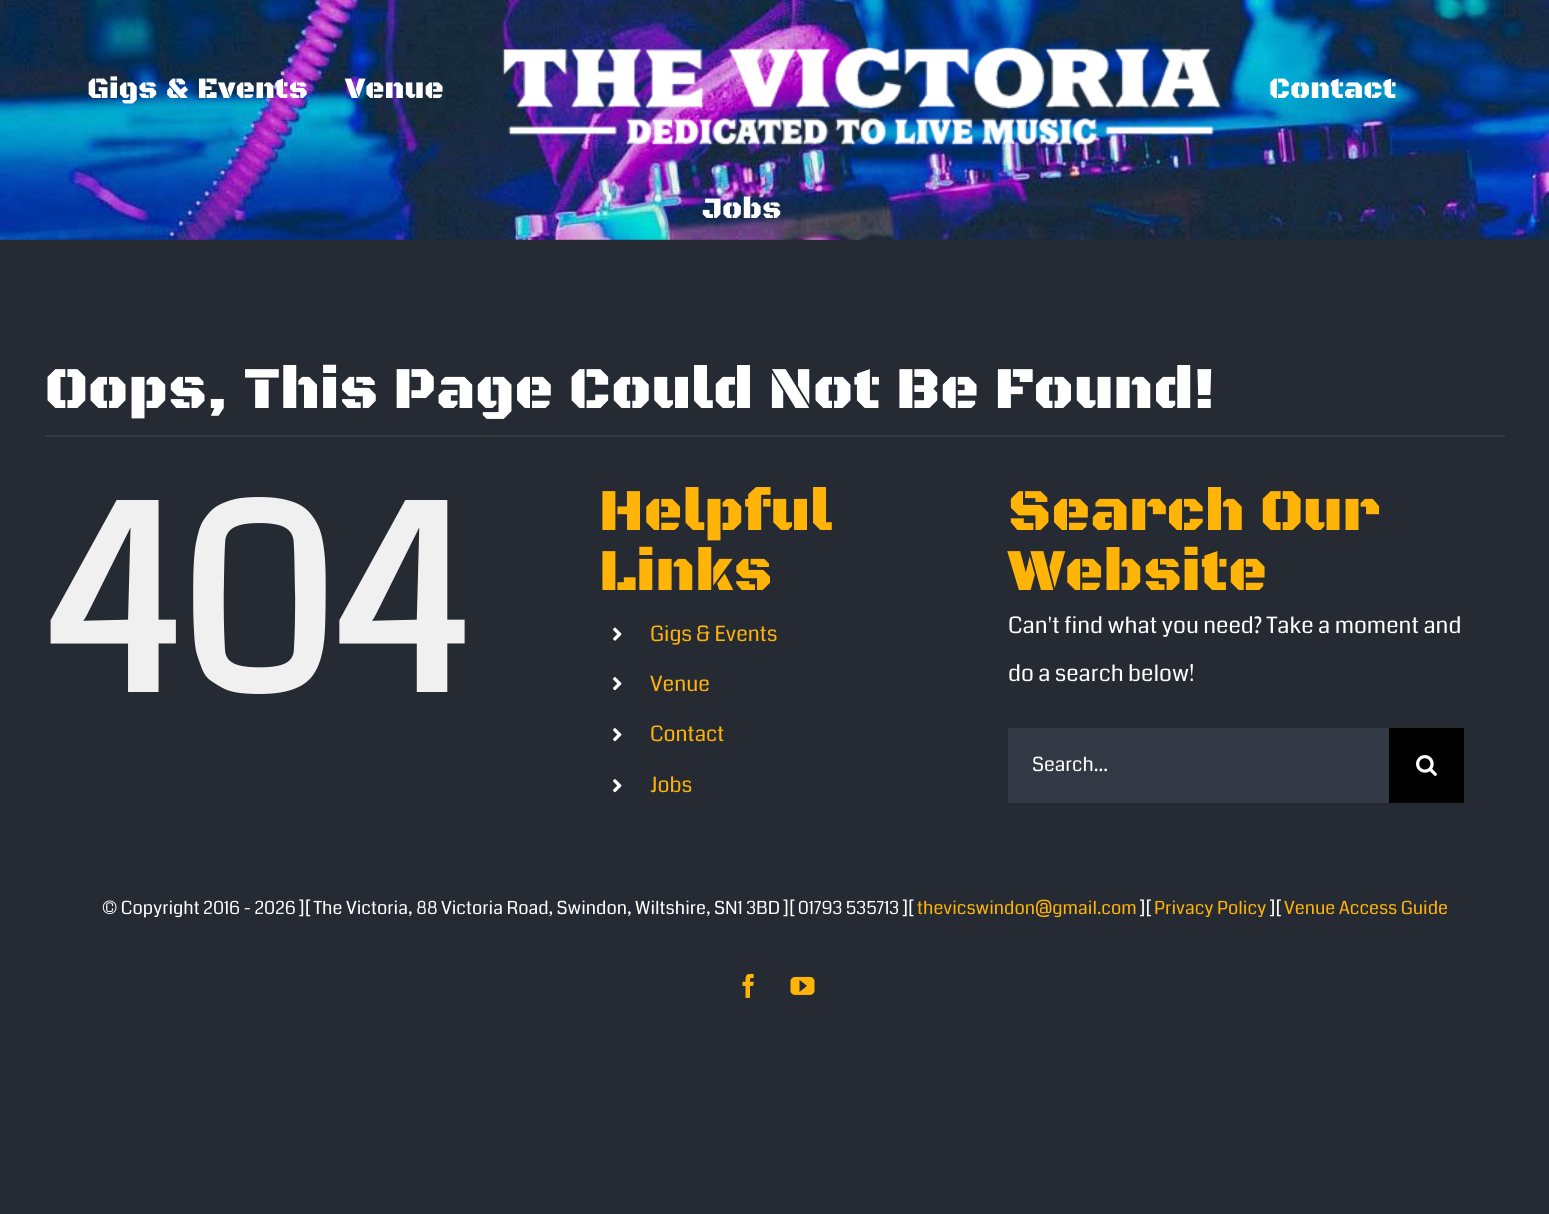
import math
import cairo

surface = cairo.ImageSurface(cairo.FORMAT_RGB24, 1549, 1214)
cr = cairo.Context(surface)
options = cairo.FontOptions()
options.set_hint_metrics(cairo.HINT_METRICS_OFF)
options.set_hint_style(cairo.HINT_STYLE_NONE)
cr.set_font_options(options)
cr.set_miter_limit(4)


def rgb(code):
    cr.set_source_rgb(*(v / 255 for v in bytes.fromhex(code[-6:])))


def image(path, x, y, w, h):
    cr.save()
    cr.set_source_surface(cairo.ImageSurface.create_from_png(path), x, y)
    cr.rectangle(x, y, w, h)
    cr.fill()
    cr.restore()


rgb("#252a33")
cr.paint()
image("img/1.png", 0, 0, 1549, 240)
image("img/2.png", 502, 46, 720, 100)
rgb("#323844")
cr.rectangle(45, 435, 1460, 2)
cr.fill()
image("img/3.png", 613, 627, 9, 14)
image("img/4.png", 613, 677, 9, 14)
image("img/4.png", 613, 728, 9, 14)
image("img/4.png", 613, 779, 9, 14)
cr.rectangle(1008, 728, 381, 75)
cr.fill()
rgb("#000000")
cr.rectangle(1389, 728, 75, 75)
cr.fill()
image("img/5.png", 1416, 755, 21, 21)
image("img/6.png", 742, 973, 12, 25)
image("img/7.png", 790, 976, 25, 19)
cr.select_font_face("Black Ops One Black")
cr.set_font_size(30)
rgb("#ffffff")
for x, y, s in [
    (87, 98, "Gigs & Events"),
    (345, 98, "Venue"),
    (1269, 98, "Contact"),
    (702, 218, "Jobs"),
]:
    cr.move_to(x, y)
    cr.show_text(s)
cr.set_font_size(60)
cr.move_to(45, 408)
cr.show_text("Oops, This Page Could Not Be Found!")
cr.select_font_face("Coda", cairo.FONT_SLANT_NORMAL, cairo.FONT_WEIGHT_BOLD)
cr.set_font_size(255)
rgb("#f0f0f0")
cr.move_to(45, 692)
cr.show_text("404")
cr.select_font_face("Black Ops One Black")
cr.set_font_size(60)
rgb("#ffb407")
cr.move_to(599, 530)
cr.show_text("Helpful")
cr.move_to(599, 590)
cr.show_text("Links")
cr.select_font_face("Coda")
cr.set_font_size(21)
for x, y, s in [
    (650, 641, "Gigs & Events"),
    (650, 691, "Venue"),
    (650, 741, "Contact"),
    (650, 792, "Jobs"),
]:
    cr.move_to(x, y)
    cr.show_text(s)
cr.select_font_face("Black Ops One Black")
cr.set_font_size(60)
cr.move_to(1008, 530)
cr.show_text("Search Our")
cr.move_to(1008, 590)
cr.show_text("Website")
cr.select_font_face("Coda")
cr.set_font_size(22.5)
rgb("#ffffff")
cr.move_to(1008, 633)
cr.show_text("Can't find what you need? Take a moment and")
cr.move_to(1008, 681)
cr.show_text("do a search below!")
cr.set_font_size(19.5)
cr.move_to(1032, 771)
cr.show_text("Search...")
cr.set_font_size(18)
cr.move_to(102, 914)
cr.show_text("© Copyright 2016 - 2026 ][ The Victoria, 88 Victoria Road, Swindon, Wiltshire, SN1 3BD ][ 01793 535713 ][")
rgb("#ffb407")
cr.move_to(917, 914)
cr.show_text("thevicswindon@gmail.com")
rgb("#ffffff")
cr.move_to(1140, 914)
cr.show_text("][")
rgb("#ffb407")
cr.move_to(1154, 914)
cr.show_text("Privacy Policy")
rgb("#ffffff")
cr.move_to(1270, 914)
cr.show_text("][")
rgb("#ffb407")
cr.move_to(1284, 914)
cr.show_text("Venue Access Guide")
surface.write_to_png("page.png")
